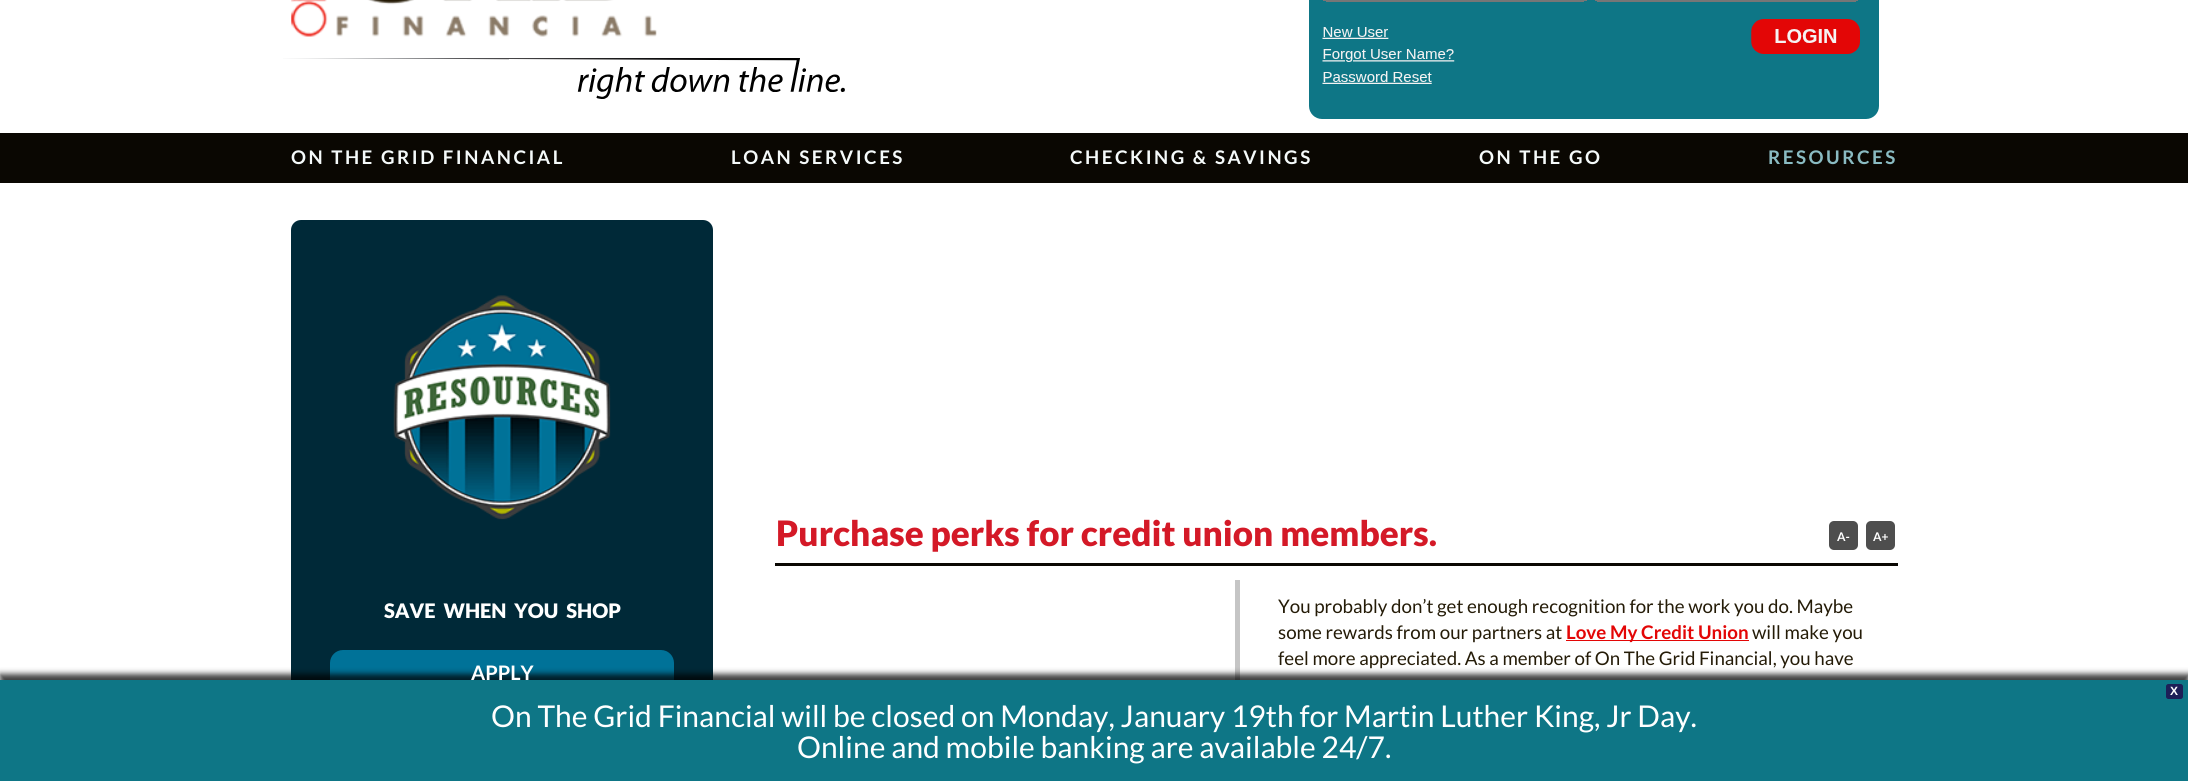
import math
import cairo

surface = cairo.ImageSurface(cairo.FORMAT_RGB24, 2188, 781)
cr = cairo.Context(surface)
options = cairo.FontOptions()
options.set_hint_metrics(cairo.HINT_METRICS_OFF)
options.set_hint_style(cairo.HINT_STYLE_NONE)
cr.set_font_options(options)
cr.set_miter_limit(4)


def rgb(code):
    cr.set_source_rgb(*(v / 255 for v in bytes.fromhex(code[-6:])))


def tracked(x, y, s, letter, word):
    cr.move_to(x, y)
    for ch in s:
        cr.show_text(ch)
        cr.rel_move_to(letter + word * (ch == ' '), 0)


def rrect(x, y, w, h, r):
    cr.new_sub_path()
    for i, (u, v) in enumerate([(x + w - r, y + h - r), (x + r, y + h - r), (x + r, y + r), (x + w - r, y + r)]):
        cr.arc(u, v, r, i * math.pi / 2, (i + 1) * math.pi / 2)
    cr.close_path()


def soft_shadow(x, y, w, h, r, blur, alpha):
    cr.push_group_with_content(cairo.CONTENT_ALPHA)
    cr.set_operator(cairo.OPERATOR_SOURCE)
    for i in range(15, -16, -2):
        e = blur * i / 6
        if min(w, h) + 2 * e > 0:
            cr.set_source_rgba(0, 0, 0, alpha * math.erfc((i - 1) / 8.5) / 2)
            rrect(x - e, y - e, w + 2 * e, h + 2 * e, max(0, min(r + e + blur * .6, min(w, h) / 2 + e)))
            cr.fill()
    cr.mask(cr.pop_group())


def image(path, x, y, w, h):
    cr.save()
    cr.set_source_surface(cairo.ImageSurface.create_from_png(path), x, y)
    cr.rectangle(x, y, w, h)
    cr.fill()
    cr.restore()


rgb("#ffffff")
cr.paint()
image("img/1.png", 291, 0, 366, 37)
image("img/2.png", 283, 58, 562, 41)
rgb("#0e7686")
rrect(1309, -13, 570, 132, 13)
cr.fill()
image("img/3.png", 1322, 0, 538, 84)
rgb("#0a0702")
cr.rectangle(0, 133, 2188, 50)
cr.fill()
rgb("#002938")
rrect(291, 220, 422, 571, 10)
cr.fill()
image("img/4.png", 393, 295, 218, 225)
rgb("#007298")
rrect(330, 650, 344, 45, 13)
cr.fill()
rgb("#0a0702")
cr.rectangle(775, 563, 1123, 3)
cr.fill()
rgb("#4e4e4e")
rrect(1829, 521, 29, 29, 5)
cr.fill()
rrect(1866, 521, 29, 29, 5)
cr.fill()
rgb("#c5c5c5")
cr.rectangle(1235, 580, 5, 100)
cr.fill()
rgb("#e30606")
cr.rectangle(1566, 640, 183, 1)
cr.fill()
rgb("#000000")
soft_shadow(0, 674, 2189, 101, 0, 3, 0.75)
rgb("#0e7686")
cr.rectangle(0, 680, 2188, 101)
cr.fill()
rgb("#1d1f57")
rrect(2166.5, 684.5, 16, 14, 2)
cr.fill_preserve()
cr.set_line_width(1)
cr.stroke()
cr.select_font_face("Lato", cairo.FONT_SLANT_NORMAL, cairo.FONT_WEIGHT_BOLD)
cr.set_font_size(18.75)
rgb("#f5fafa")
for x, y, s in [
    (291, 164, "ON THE GRID FINANCIAL"),
    (731, 164, "LOAN SERVICES"),
    (1070, 164, "CHECKING & SAVINGS"),
    (1479, 164, "ON THE GO"),
]:
    tracked(x, y, s, 2.5, 0)
rgb("#8abbc2")
tracked(1768, 164, "RESOURCES", 2.5, 0)
cr.select_font_face("Lato Black")
cr.set_font_size(20)
rgb("#ffffff")
tracked(384, 618, "SAVE WHEN YOU SHOP", 0, 4)
cr.select_font_face("Lato", cairo.FONT_SLANT_NORMAL, cairo.FONT_WEIGHT_BOLD)
cr.move_to(471, 680)
cr.show_text("APPLY")
cr.select_font_face("Lato Black")
cr.set_font_size(35)
rgb("#d41927")
cr.move_to(776, 546)
cr.show_text("Purchase perks for credit union members.")
cr.select_font_face("Lato", cairo.FONT_SLANT_NORMAL, cairo.FONT_WEIGHT_BOLD)
cr.set_font_size(12)
rgb("#ffffff")
cr.move_to(1837, 541)
cr.show_text("A-")
cr.move_to(1873, 541)
cr.show_text("A+")
cr.select_font_face("Lato")
cr.set_font_size(18.75)
rgb("#241b07")
cr.move_to(1278, 613)
cr.show_text("You probably don’t get enough recognition for the work you do. Maybe")
cr.move_to(1278, 639)
cr.show_text("some rewards from our partners at")
cr.select_font_face("Lato", cairo.FONT_SLANT_NORMAL, cairo.FONT_WEIGHT_BOLD)
rgb("#e30606")
cr.move_to(1566, 639)
cr.show_text("Love My Credit Union")
cr.select_font_face("Lato")
rgb("#241b07")
cr.move_to(1752, 639)
cr.show_text("will make you")
cr.move_to(1278, 665)
cr.show_text("feel more appreciated. As a member of On The Grid Financial, you have")
cr.select_font_face("Liberation Sans", cairo.FONT_SLANT_NORMAL, cairo.FONT_WEIGHT_BOLD)
cr.set_font_size(12)
rgb("#ffffff")
cr.move_to(2170, 695)
cr.show_text("X")
cr.select_font_face("Lato")
cr.set_font_size(30)
cr.move_to(491, 727)
cr.show_text("On The Grid Financial will be closed on Monday, January 19th for Martin Luther King, Jr Day.")
cr.move_to(797, 758)
cr.show_text("Online and mobile banking are available 24/7.")
surface.write_to_png("page.png")
